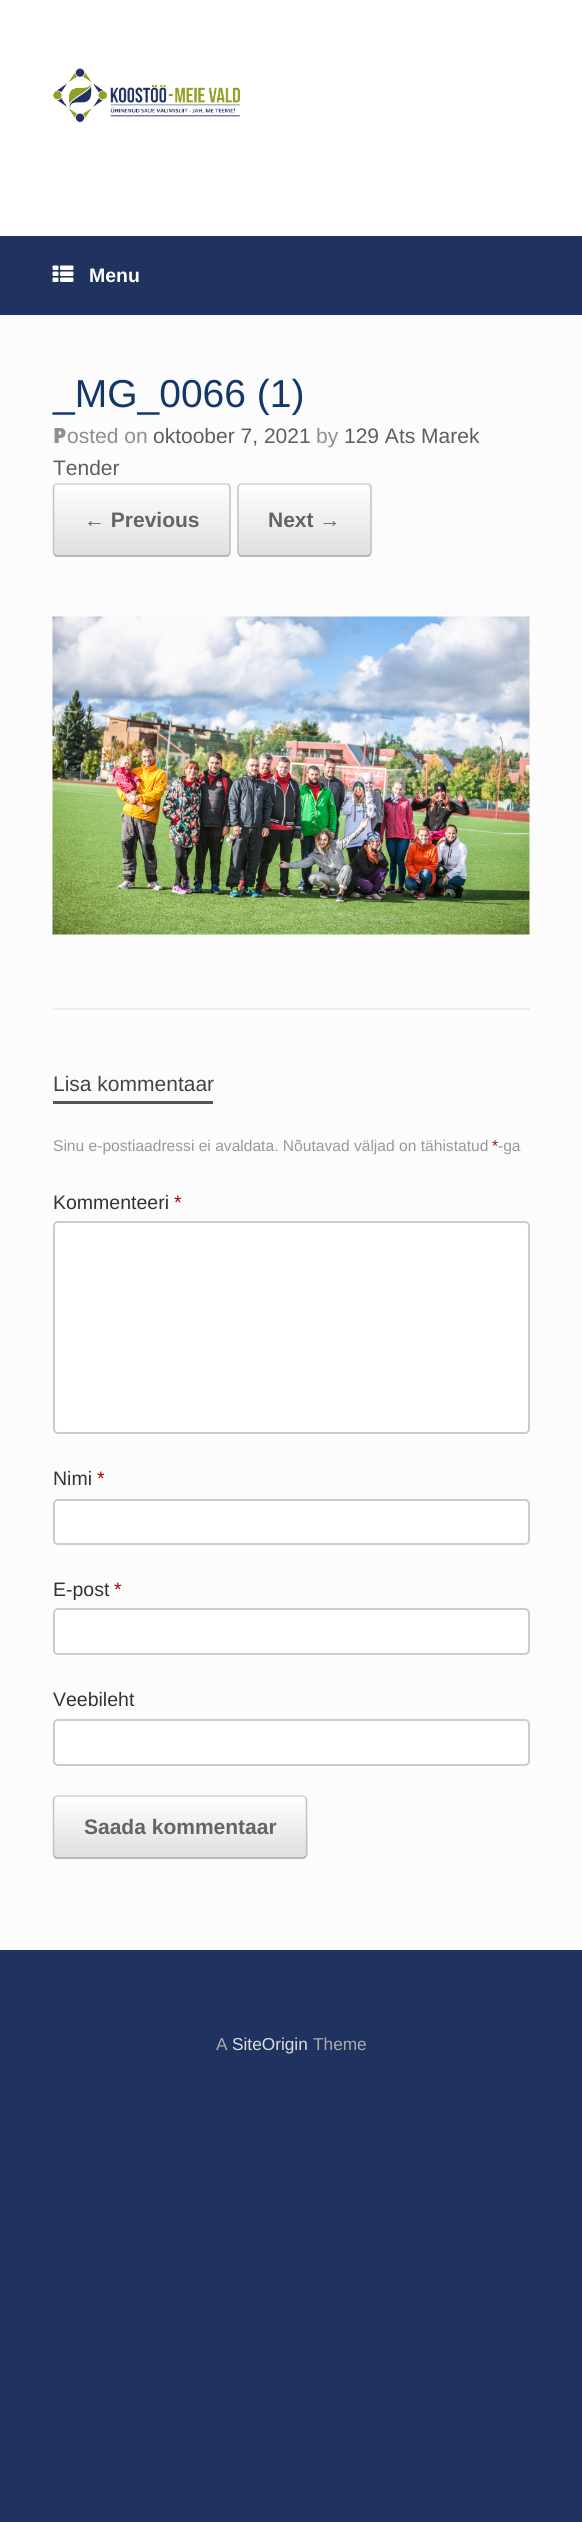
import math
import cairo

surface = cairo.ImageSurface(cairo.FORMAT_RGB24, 582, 2522)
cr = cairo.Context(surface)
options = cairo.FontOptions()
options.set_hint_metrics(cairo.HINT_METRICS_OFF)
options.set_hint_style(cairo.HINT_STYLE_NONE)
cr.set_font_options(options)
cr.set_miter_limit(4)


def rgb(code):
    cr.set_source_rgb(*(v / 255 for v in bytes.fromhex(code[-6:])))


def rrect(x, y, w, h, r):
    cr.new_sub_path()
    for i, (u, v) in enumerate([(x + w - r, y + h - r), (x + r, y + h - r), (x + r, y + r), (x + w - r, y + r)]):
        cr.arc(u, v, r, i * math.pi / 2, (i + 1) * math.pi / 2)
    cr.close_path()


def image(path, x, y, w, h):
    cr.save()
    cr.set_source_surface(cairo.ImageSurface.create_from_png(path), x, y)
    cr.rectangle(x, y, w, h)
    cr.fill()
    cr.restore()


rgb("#203260")
cr.paint()
rgb("#ffffff")
cr.rectangle(0, 0, 582, 236)
cr.fill()
image("img/1.png", 53, 68, 187, 55)
image("img/2.png", 52, 265, 22, 17)
rgb("#fcfcfc")
cr.rectangle(0, 315, 582, 1635)
cr.fill()
rgb("#eeeeee")
cr.rectangle(53, 1008, 477, 2)
cr.fill()
cr.save()
rrect(53, 483, 178, 74, 5)
cr.clip()
gradient = cairo.LinearGradient(54, 555, 54, 485)
gradient.add_color_stop_rgba(0, 0.875, 0.875, 0.875, 1)
gradient.add_color_stop_rgba(1, 1, 1, 1, 1)
cr.set_source(gradient)
cr.rectangle(53, 485, 178, 70)
cr.fill()
gradient = cairo.LinearGradient(54, 626, 54, 555)
gradient.add_color_stop_rgba(0, 0.875, 0.875, 0.875, 1)
gradient.add_color_stop_rgba(1, 1, 1, 1, 1)
cr.set_source(gradient)
cr.rectangle(53, 555, 178, 2)
cr.fill()
cr.restore()
cr.new_path()
cr.move_to(54.5, 485)
cr.curve_to(55, 484, 56, 484, 57, 484)
cr.line_to(226.5, 484)
cr.curve_to(227.5, 484, 228.5, 484, 229, 485)
rgb("#d2d2d2")
cr.set_line_width(1.5)
cr.stroke()
cr.new_path()
cr.move_to(229, 485)
cr.line_to(230, 487)
cr.line_to(230, 552.5)
cr.line_to(229, 554.5)
rgb("#c3c3c3")
cr.stroke()
cr.new_path()
cr.move_to(229, 554.5)
cr.curve_to(228.5, 555.5, 227.5, 556, 226.5, 556)
cr.line_to(57, 556)
cr.curve_to(56, 556, 55, 555.5, 54.5, 554.5)
rgb("#9f9f9f")
cr.stroke()
cr.new_path()
cr.move_to(54.5, 554.5)
cr.line_to(53.5, 552.5)
cr.line_to(53.5, 487)
cr.line_to(54.5, 485)
rgb("#c3c3c3")
cr.stroke()
cr.save()
rrect(237, 483, 135, 74, 5)
cr.clip()
gradient = cairo.LinearGradient(239, 555, 239, 485)
gradient.add_color_stop_rgba(0, 0.875, 0.875, 0.875, 1)
gradient.add_color_stop_rgba(1, 1, 1, 1, 1)
cr.set_source(gradient)
cr.rectangle(237, 485, 135, 70)
cr.fill()
gradient = cairo.LinearGradient(239, 626, 239, 555)
gradient.add_color_stop_rgba(0, 0.875, 0.875, 0.875, 1)
gradient.add_color_stop_rgba(1, 1, 1, 1, 1)
cr.set_source(gradient)
cr.rectangle(237, 555, 135, 2)
cr.fill()
cr.restore()
cr.new_path()
cr.move_to(239, 485)
cr.curve_to(239.5, 484, 240.5, 484, 241.5, 484)
cr.line_to(367.5, 484)
cr.curve_to(368.5, 484, 369.5, 484, 370, 485)
rgb("#d2d2d2")
cr.stroke()
cr.new_path()
cr.move_to(370, 485)
cr.line_to(371, 487)
cr.line_to(371, 552.5)
cr.line_to(370, 554.5)
rgb("#c3c3c3")
cr.stroke()
cr.new_path()
cr.move_to(370, 554.5)
cr.curve_to(369.5, 555.5, 368.5, 556, 367.5, 556)
cr.line_to(241.5, 556)
cr.curve_to(240.5, 556, 239.5, 555.5, 239, 554.5)
rgb("#9f9f9f")
cr.stroke()
cr.new_path()
cr.move_to(239, 554.5)
cr.line_to(238, 552.5)
cr.line_to(238, 487)
cr.line_to(239, 485)
rgb("#c3c3c3")
cr.stroke()
image("img/3.png", 52, 616, 478, 319)
rgb("#555555")
cr.rectangle(53, 1101, 160, 3)
cr.fill()
rgb("#ffffff")
rrect(54, 1222, 475, 211, 4)
cr.fill_preserve()
rgb("#cccccc")
cr.set_line_width(2)
cr.stroke()
rgb("#ffffff")
rrect(54, 1500, 475, 44, 4)
cr.fill_preserve()
rgb("#cccccc")
cr.stroke()
rgb("#ffffff")
rrect(54, 1609, 475, 45, 4)
cr.fill_preserve()
rgb("#cccccc")
cr.stroke()
rgb("#ffffff")
rrect(54, 1720, 475, 45, 4)
cr.fill_preserve()
rgb("#cccccc")
cr.stroke()
cr.save()
rrect(53, 1796, 255, 63, 5)
cr.clip()
gradient = cairo.LinearGradient(54, 1857, 54, 1797)
gradient.add_color_stop_rgba(0, 0.875, 0.875, 0.875, 1)
gradient.add_color_stop_rgba(1, 1, 1, 1, 1)
cr.set_source(gradient)
cr.rectangle(53, 1797, 255, 60)
cr.fill()
gradient = cairo.LinearGradient(54, 1917, 54, 1857)
gradient.add_color_stop_rgba(0, 0.875, 0.875, 0.875, 1)
gradient.add_color_stop_rgba(1, 1, 1, 1, 1)
cr.set_source(gradient)
cr.rectangle(53, 1857, 255, 2)
cr.fill()
cr.restore()
cr.new_path()
cr.move_to(54.5, 1797.5)
cr.curve_to(55, 1796.5, 56, 1796, 57, 1796)
cr.line_to(303, 1796)
cr.curve_to(304, 1796, 305, 1796.5, 305.5, 1797.5)
rgb("#d2d2d2")
cr.set_line_width(1.5)
cr.stroke()
cr.new_path()
cr.move_to(305.5, 1797.5)
cr.line_to(306.5, 1799.5)
cr.line_to(306.5, 1854.5)
cr.line_to(305.5, 1856.5)
rgb("#c3c3c3")
cr.stroke()
cr.new_path()
cr.move_to(305.5, 1856.5)
cr.curve_to(305, 1857.5, 304, 1858, 303, 1858)
cr.line_to(57, 1858)
cr.curve_to(56, 1858, 55, 1857.5, 54.5, 1856.5)
rgb("#9f9f9f")
cr.stroke()
cr.new_path()
cr.move_to(54.5, 1856.5)
cr.line_to(53.5, 1854.5)
cr.line_to(53.5, 1799.5)
cr.line_to(54.5, 1797.5)
rgb("#c3c3c3")
cr.stroke()
cr.select_font_face("Liberation Sans", cairo.FONT_SLANT_NORMAL, cairo.FONT_WEIGHT_BOLD)
cr.set_font_size(19.5)
rgb("#ffffff")
cr.move_to(89, 282)
cr.show_text("Menu")
cr.select_font_face("Liberation Sans")
cr.set_font_size(39)
rgb("#13376b")
cr.move_to(53, 407)
cr.show_text("_MG_0066 (1)")
cr.select_font_face("Noto Sans Black")
cr.set_font_size(21)
rgb("#8f8f8f")
cr.move_to(53, 443)
cr.show_text("P")
cr.select_font_face("Liberation Sans")
cr.move_to(67, 443)
cr.show_text("osted on")
rgb("#5e5e5e")
cr.move_to(153, 443)
cr.show_text("oktoober 7, 2021")
rgb("#8f8f8f")
cr.move_to(316, 443)
cr.show_text("by")
rgb("#5e5e5e")
cr.move_to(344, 443)
cr.show_text("129 Ats Marek")
cr.move_to(53, 475)
cr.show_text("Tender")
cr.select_font_face("Liberation Sans", cairo.FONT_SLANT_NORMAL, cairo.FONT_WEIGHT_BOLD)
rgb("#646464")
cr.move_to(84, 527)
cr.show_text("← Previous")
cr.move_to(268, 527)
cr.show_text("Next →")
cr.select_font_face("Liberation Sans")
rgb("#444444")
cr.move_to(53, 1091)
cr.show_text("Lisa kommentaar")
cr.set_font_size(15.6)
rgb("#999999")
cr.move_to(53, 1151)
cr.show_text("Sinu e-postiaadressi ei avaldata. Nõutavad väljad on tähistatud")
rgb("#a40802")
cr.move_to(492, 1151)
cr.show_text("*")
rgb("#999999")
cr.move_to(498, 1151)
cr.show_text("-ga")
cr.set_font_size(19.5)
rgb("#333333")
cr.move_to(53, 1209)
cr.show_text("Kommenteeri")
rgb("#a40802")
cr.move_to(174, 1209)
cr.show_text("*")
rgb("#333333")
cr.move_to(53, 1485)
cr.show_text("Nimi")
rgb("#a40802")
cr.move_to(97, 1485)
cr.show_text("*")
rgb("#333333")
cr.move_to(53, 1596)
cr.show_text("E-post")
rgb("#a40802")
cr.move_to(114, 1596)
cr.show_text("*")
rgb("#333333")
cr.move_to(53, 1706)
cr.show_text("Veebileht")
cr.select_font_face("Liberation Sans", cairo.FONT_SLANT_NORMAL, cairo.FONT_WEIGHT_BOLD)
cr.set_font_size(21)
rgb("#646464")
cr.move_to(84, 1834)
cr.show_text("Saada kommentaar")
cr.select_font_face("Liberation Sans")
cr.set_font_size(17.25)
rgb("#aaaaaa")
cr.move_to(216, 2050)
cr.show_text("A")
rgb("#dddddd")
cr.move_to(232, 2050)
cr.show_text("SiteOrigin")
rgb("#aaaaaa")
cr.move_to(313, 2050)
cr.show_text("Theme")
surface.write_to_png("page.png")
